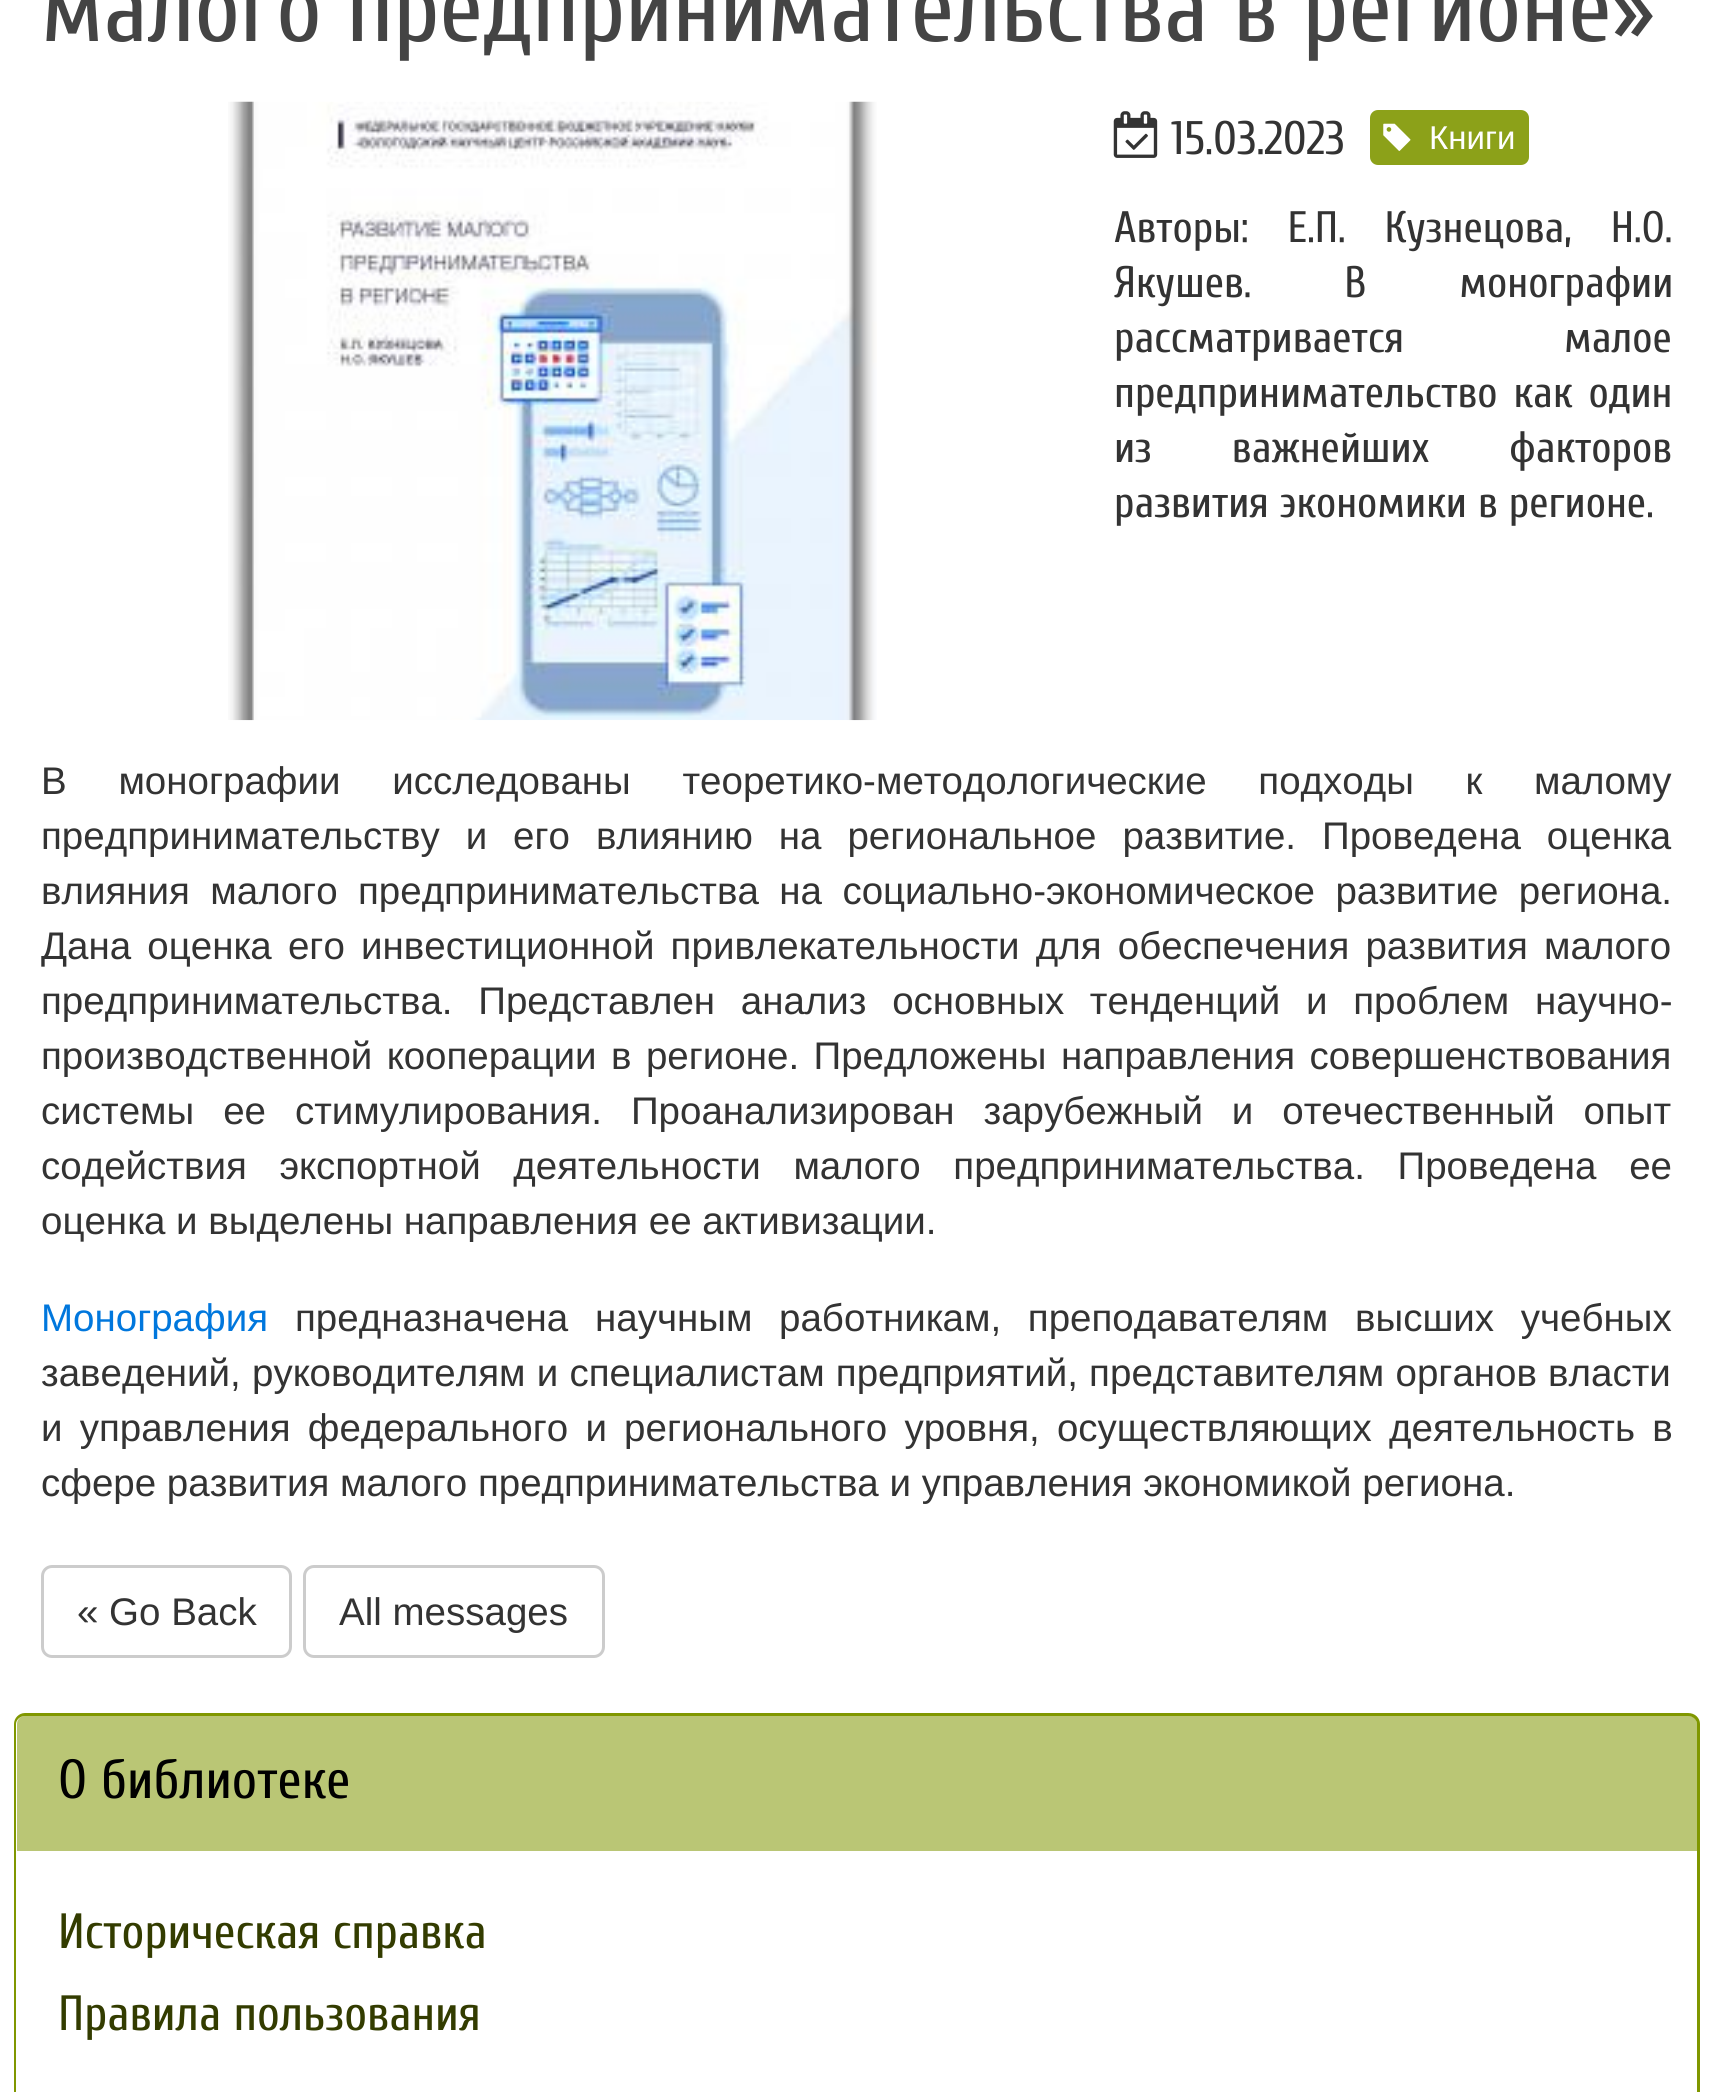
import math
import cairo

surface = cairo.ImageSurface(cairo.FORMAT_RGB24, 1713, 2092)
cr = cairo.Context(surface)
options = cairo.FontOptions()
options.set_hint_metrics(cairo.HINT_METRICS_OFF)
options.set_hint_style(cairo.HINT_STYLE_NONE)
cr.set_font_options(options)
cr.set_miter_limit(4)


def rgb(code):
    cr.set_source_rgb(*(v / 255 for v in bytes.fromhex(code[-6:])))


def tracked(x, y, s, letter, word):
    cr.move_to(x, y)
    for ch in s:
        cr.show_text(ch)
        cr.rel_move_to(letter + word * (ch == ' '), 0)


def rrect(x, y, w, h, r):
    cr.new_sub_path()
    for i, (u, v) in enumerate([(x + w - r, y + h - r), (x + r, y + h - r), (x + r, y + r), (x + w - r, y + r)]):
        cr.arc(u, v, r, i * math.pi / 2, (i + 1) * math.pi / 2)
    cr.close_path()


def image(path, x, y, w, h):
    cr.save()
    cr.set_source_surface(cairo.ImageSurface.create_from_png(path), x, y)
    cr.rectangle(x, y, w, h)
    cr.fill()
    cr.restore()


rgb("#ffffff")
cr.paint()
image("img/1.png", 228, 101, 649, 620)
image("img/2.png", 1113, 111, 45, 47)
rgb("#8ca119")
rrect(1370, 110, 159, 55, 8)
cr.fill()
image("img/3.png", 1383, 123, 28, 28)
rrect(42.5, 1566.5, 248, 90, 9.5)
rgb("#cccccc")
cr.set_line_width(3)
cr.stroke()
rrect(304.5, 1566.5, 299, 90, 9.5)
cr.stroke()
rgb("#809700")
cr.set_fill_rule(cairo.FILL_RULE_EVEN_ODD)
cr.new_path()
cr.move_to(25, 1713)
cr.line_to(1688, 1713)
cr.curve_to(1695, 1713, 1700, 1718, 1700, 1724)
cr.line_to(1700, 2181)
cr.line_to(14, 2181)
cr.line_to(14, 1724)
cr.curve_to(14, 1718, 19, 1713, 25, 1713)
cr.close_path()
cr.move_to(25, 1716)
cr.line_to(1688, 1716)
cr.curve_to(1693, 1716, 1697, 1720, 1697, 1724)
cr.line_to(1697, 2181)
cr.line_to(16, 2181)
cr.line_to(16, 1724)
cr.curve_to(16, 1720, 20, 1716, 25, 1716)
cr.close_path()
cr.fill()
cr.set_source_rgba(0.502, 0.592, 0, 0.54)
cr.new_path()
cr.move_to(25, 1716)
cr.line_to(1689, 1716)
cr.curve_to(1693.5, 1716, 1697, 1719.5, 1697, 1724)
cr.line_to(1697, 1851)
cr.line_to(17, 1851)
cr.line_to(17, 1724)
cr.curve_to(17, 1719.5, 20.5, 1716, 25, 1716)
cr.close_path()
cr.fill()
cr.select_font_face("Cuprum")
cr.set_font_size(99)
rgb("#444444")
cr.move_to(41, 41)
cr.show_text("малого предпринимательства в регионе»")
cr.set_font_size(47)
rgb("#333333")
cr.move_to(1171, 154)
cr.show_text("15.03.2023")
cr.select_font_face("Liberation Sans")
cr.set_font_size(33)
rgb("#ffffff")
cr.move_to(1429, 149)
cr.show_text("Книги")
cr.select_font_face("Cuprum")
cr.set_font_size(44)
rgb("#333333")
tracked(1114, 242, "Авторы: Е.П. Кузнецова, Н.О.", 0, 28)
tracked(1114, 297, "Якушев. В монографии", 0, 82)
tracked(1114, 352, "рассматривается малое", 0, 149)
tracked(1114, 407, "предпринимательство как один", 0, 5)
tracked(1114, 462, "из важнейших факторов", 0, 69)
cr.move_to(1114, 517)
cr.show_text("развития экономики в регионе.")
cr.select_font_face("Liberation Sans")
cr.set_font_size(38.5)
tracked(41, 794, "В монографии исследованы теоретико-методологические подходы к малому", 0, 41)
tracked(41, 849, "предпринимательству и его влиянию на региональное развитие. Проведена оценка", 0, 15.25)
tracked(41, 904, "влияния малого предпринимательства на социально-экономическое развитие региона.", 0, 9.75)
tracked(41, 959, "Дана оценка его инвестиционной привлекательности для обеспечения развития малого", 0, 5.5)
tracked(41, 1014, "предпринимательства. Представлен анализ основных тенденций и проблем научно-", 0, 15)
tracked(41, 1069, "производственной кооперации в регионе. Предложены направления совершенствования", 0, 3.75)
tracked(41, 1124, "системы ее стимулирования. Проанализирован зарубежный и отечественный опыт", 0, 18.25)
tracked(41, 1179, "содействия экспортной деятельности малого предпринимательства. Проведена ее", 0, 22)
cr.move_to(41, 1234)
cr.show_text("оценка и выделены направления ее активизации.")
rgb("#0077dd")
cr.move_to(41, 1331)
cr.show_text("Монография")
rgb("#333333")
tracked(295, 1331, "предназначена научным работникам, преподавателям высших учебных", 0, 16)
tracked(41, 1386, "заведений, руководителям и специалистам предприятий, представителям органов власти", 0, 0.5)
tracked(41, 1441, "и управления федерального и регионального уровня, осуществляющих деятельность в", 0, 6.5)
for x, y, s in [
    (41, 1496, "сфере развития малого предпринимательства и управления экономикой региона."),
    (77, 1625, "« Go Back"),
    (339, 1625, "All messages"),
]:
    cr.move_to(x, y)
    cr.show_text(s)
cr.select_font_face("Cuprum")
cr.set_font_size(55)
rgb("#000000")
cr.move_to(58, 1798)
cr.show_text("О библиотеке")
cr.set_font_size(49.5)
rgb("#333c00")
cr.move_to(58, 1948)
cr.show_text("Историческая справка")
cr.move_to(58, 2030)
cr.show_text("Правила пользования")
surface.write_to_png("page.png")
